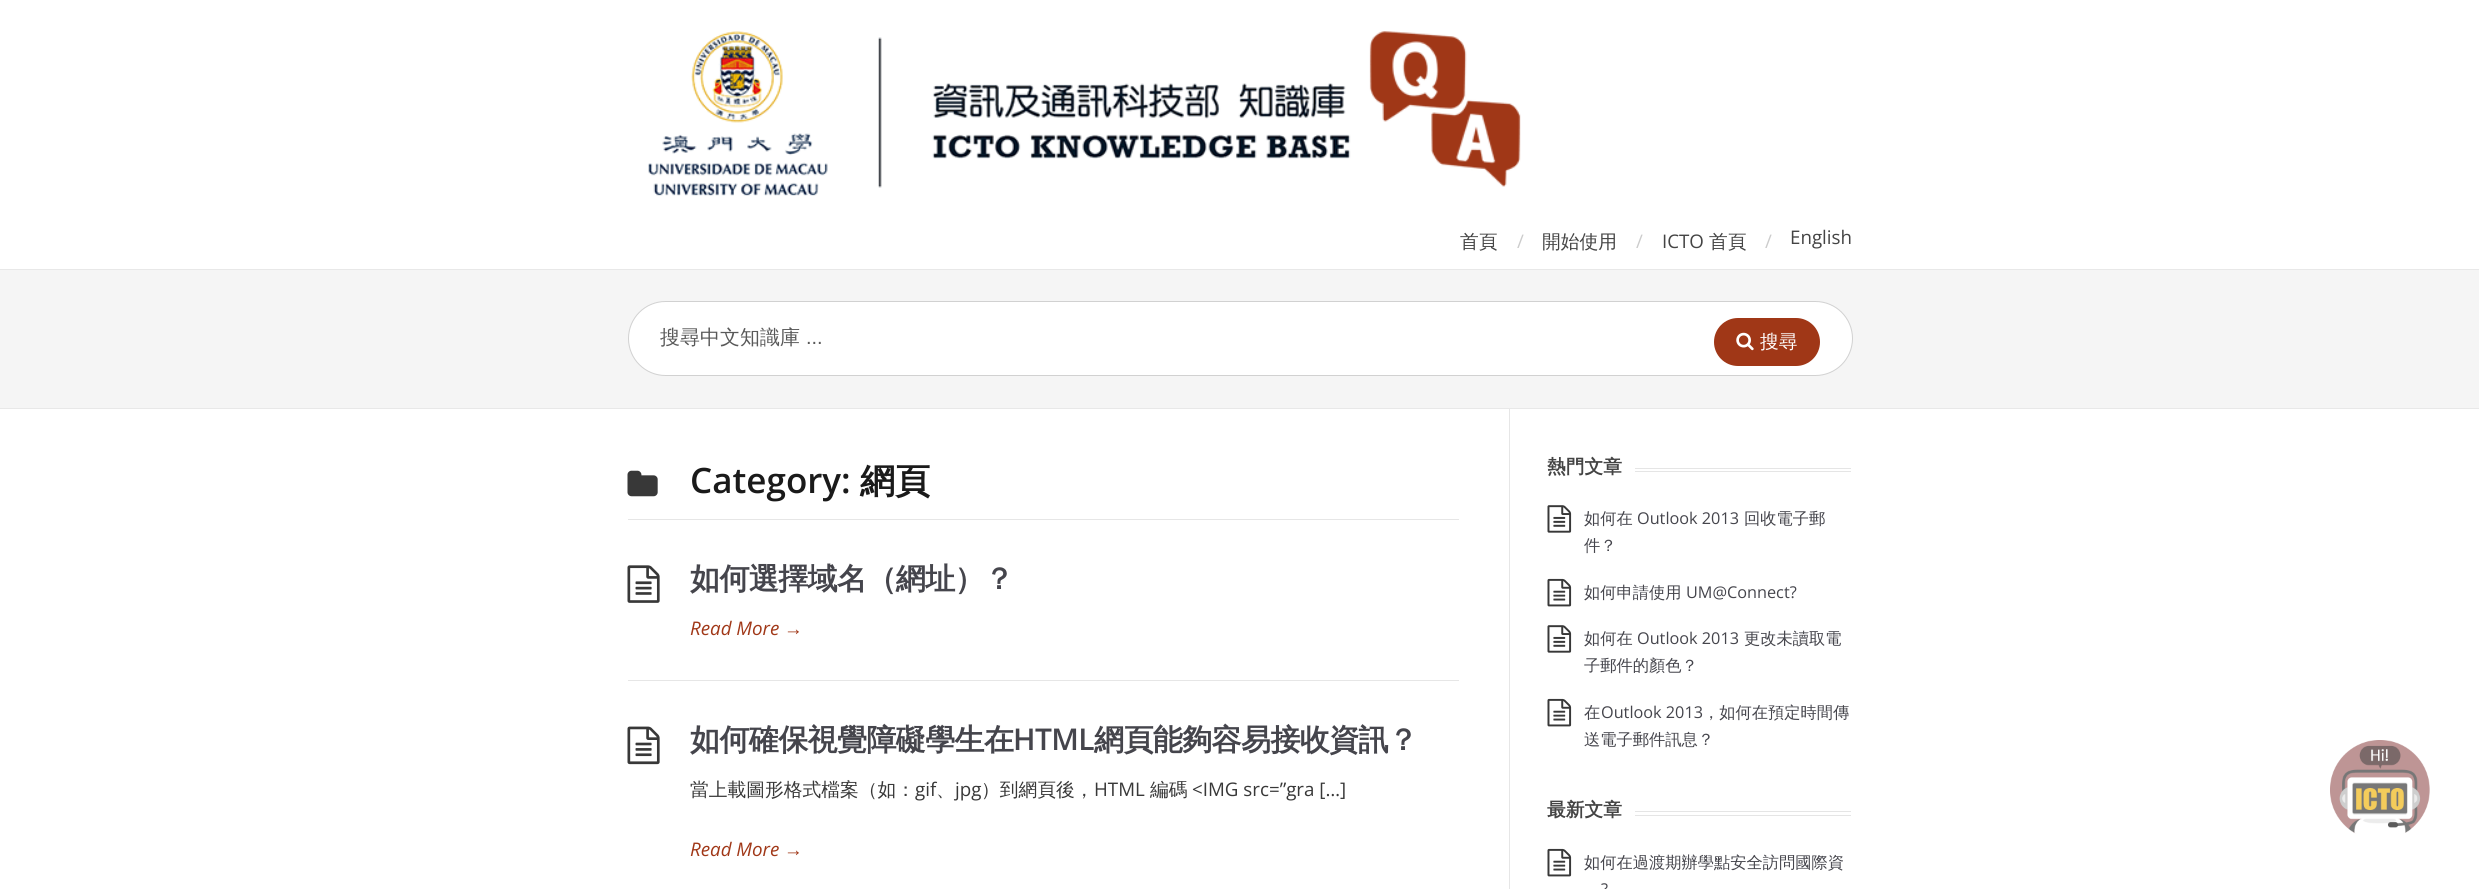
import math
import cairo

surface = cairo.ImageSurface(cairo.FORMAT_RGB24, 2479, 889)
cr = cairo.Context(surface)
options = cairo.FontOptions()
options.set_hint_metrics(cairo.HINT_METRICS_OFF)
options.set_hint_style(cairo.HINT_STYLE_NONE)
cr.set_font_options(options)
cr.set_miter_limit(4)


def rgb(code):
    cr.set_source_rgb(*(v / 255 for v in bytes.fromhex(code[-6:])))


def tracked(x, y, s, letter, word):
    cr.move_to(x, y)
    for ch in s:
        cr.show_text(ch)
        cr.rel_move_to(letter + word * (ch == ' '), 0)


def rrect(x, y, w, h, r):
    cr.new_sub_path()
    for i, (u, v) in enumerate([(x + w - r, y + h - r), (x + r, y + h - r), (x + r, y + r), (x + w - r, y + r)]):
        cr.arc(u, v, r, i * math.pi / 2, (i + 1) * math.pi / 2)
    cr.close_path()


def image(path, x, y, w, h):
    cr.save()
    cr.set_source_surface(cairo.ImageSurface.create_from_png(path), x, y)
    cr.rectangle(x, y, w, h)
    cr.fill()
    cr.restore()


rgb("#ffffff")
cr.paint()
image("img/1.png", 648, 31, 873, 165)
for x, y, w, h, color in [
    (0, 270, 2479, 138, "#f5f5f5"),
    (0, 269, 2479, 1, "#e8e8e8"),
    (0, 408, 2479, 1, "#e8e8e8"),
]:
    rgb(color)
    cr.rectangle(x, y, w, h)
    cr.fill()
rgb("#ffffff")
rrect(628.5, 301.5, 1224, 74, 37)
cr.fill_preserve()
rgb("#d1d1d1")
cr.set_line_width(1)
cr.stroke()
rgb("#a03717")
rrect(1714, 318, 106, 48, 24)
cr.fill()
image("img/2.png", 1736, 332, 18, 19)
rgb("#e6e6e6")
cr.rectangle(1509, 409, 1, 480)
cr.fill()
cr.rectangle(628, 519, 831, 1)
cr.fill()
image("img/3.png", 627, 470, 31, 27)
cr.rectangle(628, 680, 831, 1)
cr.fill()
image("img/4.png", 627, 565, 33, 38)
image("img/5.png", 627, 726, 33, 39)
rgb("#e5e5e5")
cr.rectangle(1635, 468, 216, 1)
cr.fill()
cr.rectangle(1635, 471, 216, 1)
cr.fill()
image("img/6.png", 1547, 505, 25, 28)
image("img/7.png", 1547, 578, 25, 29)
image("img/6.png", 1547, 625, 25, 28)
image("img/7.png", 1547, 698, 25, 29)
cr.rectangle(1635, 811, 216, 1)
cr.fill()
cr.rectangle(1635, 815, 216, 1)
cr.fill()
image("img/7.png", 1547, 848, 25, 29)
image("img/8.png", 2330, 740, 100, 94)
cr.select_font_face("WenQuanYi Zen Hei Medium")
cr.set_font_size(18.75)
rgb("#444444")
cr.move_to(1460, 248)
cr.show_text("首頁")
cr.select_font_face("Open Sans")
rgb("#cccccc")
cr.move_to(1517, 248)
cr.show_text("/")
cr.select_font_face("WenQuanYi Zen Hei Medium")
rgb("#444444")
cr.move_to(1542, 248)
cr.show_text("開始使用")
cr.select_font_face("Open Sans")
rgb("#cccccc")
cr.move_to(1636, 248)
cr.show_text("/")
rgb("#444444")
cr.move_to(1662, 248)
cr.show_text("ICTO")
cr.select_font_face("WenQuanYi Zen Hei Medium")
cr.move_to(1709, 248)
cr.show_text("首頁")
cr.select_font_face("Open Sans")
rgb("#cccccc")
cr.move_to(1765, 248)
cr.show_text("/")
rgb("#444444")
cr.move_to(1790, 244)
cr.show_text("English")
cr.select_font_face("WenQuanYi Zen Hei Medium")
cr.set_font_size(20)
rgb("#595959")
cr.move_to(660, 344)
cr.show_text("搜尋中文知識庫")
cr.select_font_face("Liberation Sans")
cr.move_to(806, 344)
cr.show_text("...")
cr.select_font_face("WenQuanYi Zen Hei Medium")
cr.set_font_size(18.75)
rgb("#ffffff")
cr.move_to(1760, 348)
cr.show_text("搜尋")
cr.select_font_face("Open Sans SemiBold")
cr.set_font_size(35)
rgb("#1a1a1a")
cr.move_to(690, 493)
cr.show_text("Category:")
cr.select_font_face("WenQuanYi Zen Hei", cairo.FONT_SLANT_NORMAL, cairo.FONT_WEIGHT_BOLD)
cr.move_to(860, 493)
cr.show_text("網頁")
cr.set_font_size(30)
rgb("#45454c")
tracked(690, 589, "如何選擇域名（網址）？", -0.6, 0)
cr.select_font_face("Open Sans", cairo.FONT_SLANT_ITALIC)
cr.set_font_size(18.75)
rgb("#a03717")
cr.move_to(690, 635)
cr.show_text("Read More")
cr.select_font_face("Liberation Sans", cairo.FONT_SLANT_ITALIC)
cr.move_to(784, 635)
cr.show_text("→")
cr.select_font_face("WenQuanYi Zen Hei", cairo.FONT_SLANT_NORMAL, cairo.FONT_WEIGHT_BOLD)
cr.set_font_size(30)
rgb("#45454c")
tracked(690, 750, "如何確保視覺障礙學生在", -0.6, 0)
cr.select_font_face("Open Sans SemiBold")
tracked(1013, 750, "HTML", -0.6, 0)
cr.select_font_face("WenQuanYi Zen Hei", cairo.FONT_SLANT_NORMAL, cairo.FONT_WEIGHT_BOLD)
tracked(1094, 750, "網頁能夠容易接收資訊？", -0.6, 0)
cr.select_font_face("WenQuanYi Zen Hei Medium")
cr.set_font_size(18.75)
rgb("#383838")
cr.move_to(690, 796)
cr.show_text("當上載圖形格式檔案（如：")
cr.select_font_face("Open Sans")
cr.move_to(915, 796)
cr.show_text("gif")
cr.select_font_face("WenQuanYi Zen Hei Medium")
cr.move_to(936, 796)
cr.show_text("、")
cr.select_font_face("Open Sans")
cr.move_to(955, 796)
cr.show_text("jpg")
cr.select_font_face("WenQuanYi Zen Hei Medium")
cr.move_to(981, 796)
cr.show_text("）到網頁後，")
cr.select_font_face("Open Sans")
cr.move_to(1094, 796)
cr.show_text("HTML")
cr.select_font_face("WenQuanYi Zen Hei Medium")
cr.move_to(1150, 796)
cr.show_text("編碼")
cr.select_font_face("Open Sans")
cr.move_to(1192, 796)
cr.show_text("<IMG src=”gra […]")
cr.select_font_face("Open Sans", cairo.FONT_SLANT_ITALIC)
rgb("#a03717")
cr.move_to(690, 856)
cr.show_text("Read More")
cr.select_font_face("Liberation Sans", cairo.FONT_SLANT_ITALIC)
cr.move_to(784, 856)
cr.show_text("→")
cr.select_font_face("WenQuanYi Zen Hei", cairo.FONT_SLANT_NORMAL, cairo.FONT_WEIGHT_BOLD)
rgb("#444444")
cr.move_to(1547, 473)
cr.show_text("熱門文章")
cr.select_font_face("WenQuanYi Zen Hei Medium")
cr.set_font_size(16.25)
rgb("#45454c")
cr.move_to(1584, 524)
cr.show_text("如何在")
cr.select_font_face("Open Sans")
cr.move_to(1637, 524)
cr.show_text("Outlook 2013")
cr.select_font_face("WenQuanYi Zen Hei Medium")
for x, y, s in [
    (1744, 524, "回收電子郵"),
    (1584, 551, "件？"),
    (1584, 598, "如何申請使用"),
]:
    cr.move_to(x, y)
    cr.show_text(s)
cr.select_font_face("Open Sans")
cr.move_to(1686, 598)
cr.show_text("UM@Connect?")
cr.select_font_face("WenQuanYi Zen Hei Medium")
cr.move_to(1584, 644)
cr.show_text("如何在")
cr.select_font_face("Open Sans")
cr.move_to(1637, 644)
cr.show_text("Outlook 2013")
cr.select_font_face("WenQuanYi Zen Hei Medium")
for x, y, s in [
    (1744, 644, "更改未讀取電"),
    (1584, 671, "子郵件的顏色？"),
    (1584, 718, "在"),
]:
    cr.move_to(x, y)
    cr.show_text(s)
cr.select_font_face("Open Sans")
cr.move_to(1601, 718)
cr.show_text("Outlook 2013")
cr.select_font_face("WenQuanYi Zen Hei Medium")
cr.move_to(1703, 718)
cr.show_text("，如何在預定時間傳")
cr.move_to(1584, 745)
cr.show_text("送電子郵件訊息？")
cr.select_font_face("WenQuanYi Zen Hei", cairo.FONT_SLANT_NORMAL, cairo.FONT_WEIGHT_BOLD)
cr.set_font_size(18.75)
rgb("#444444")
cr.move_to(1547, 816)
cr.show_text("最新文章")
cr.select_font_face("WenQuanYi Zen Hei Medium")
cr.set_font_size(16.25)
rgb("#45454c")
cr.move_to(1584, 868)
cr.show_text("如何在過渡期辦學點安全訪問國際資")
cr.select_font_face("Open Sans")
cr.move_to(1601, 895)
cr.show_text("?")
surface.write_to_png("page.png")
